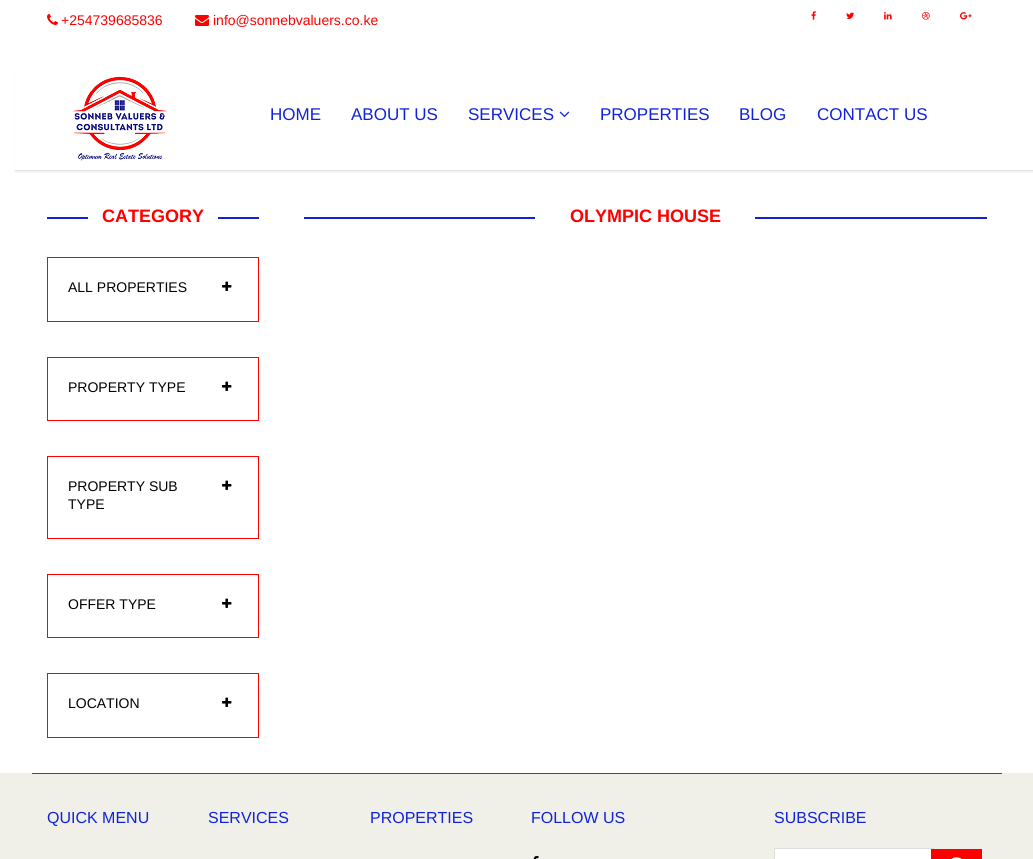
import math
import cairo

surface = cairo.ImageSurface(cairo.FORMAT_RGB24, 1033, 859)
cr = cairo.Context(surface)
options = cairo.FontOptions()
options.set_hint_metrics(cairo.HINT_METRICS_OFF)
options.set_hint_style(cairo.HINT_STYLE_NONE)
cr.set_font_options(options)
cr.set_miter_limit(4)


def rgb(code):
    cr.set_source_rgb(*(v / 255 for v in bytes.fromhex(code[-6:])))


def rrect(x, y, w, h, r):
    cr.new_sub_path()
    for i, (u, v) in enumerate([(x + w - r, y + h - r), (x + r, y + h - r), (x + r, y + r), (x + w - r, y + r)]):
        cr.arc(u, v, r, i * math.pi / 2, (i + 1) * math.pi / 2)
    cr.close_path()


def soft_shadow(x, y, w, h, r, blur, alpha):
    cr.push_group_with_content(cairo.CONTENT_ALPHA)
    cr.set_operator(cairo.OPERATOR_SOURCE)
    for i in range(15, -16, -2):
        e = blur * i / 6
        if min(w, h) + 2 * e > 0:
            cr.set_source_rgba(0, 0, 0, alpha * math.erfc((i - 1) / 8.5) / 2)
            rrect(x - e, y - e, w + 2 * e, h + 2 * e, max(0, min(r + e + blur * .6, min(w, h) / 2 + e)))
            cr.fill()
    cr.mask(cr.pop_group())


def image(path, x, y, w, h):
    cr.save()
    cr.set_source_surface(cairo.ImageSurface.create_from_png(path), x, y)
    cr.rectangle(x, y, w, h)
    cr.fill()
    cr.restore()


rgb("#ffffff")
cr.paint()
image("img/1.png", 47, 14, 11, 11)
image("img/2.png", 195, 15, 14, 11)
image("img/3.png", 811, 11, 5, 9)
image("img/4.png", 846, 12, 8, 7)
image("img/5.png", 884, 12, 8, 8)
image("img/6.png", 922, 11, 8, 9)
image("img/7.png", 960, 12, 12, 8)
cr.save()
cr.set_fill_rule(cairo.FILL_RULE_EVEN_ODD)
cr.new_path()
cr.move_to(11, 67)
cr.line_to(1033, 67)
cr.line_to(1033, 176)
cr.line_to(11, 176)
cr.close_path()
cr.move_to(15, 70)
cr.line_to(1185, 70)
cr.line_to(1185, 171)
cr.line_to(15, 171)
cr.close_path()
cr.clip()
rgb("#000000")
soft_shadow(15, 71, 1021, 101, 0, 1, 0.07)
cr.restore()
rgb("#dee2e6")
cr.rectangle(15, 170, 1018, 1)
cr.fill()
image("img/8.png", 73, 76, 94, 85)
image("img/9.png", 559, 111, 11, 7)
rgb("#0f22d9")
cr.rectangle(47, 217, 212, 2)
cr.fill()
rgb("#ffffff")
cr.rectangle(88, 217, 130, 2)
cr.fill()
cr.rectangle(47.5, 257.5, 211, 64)
rgb("#ff0001")
cr.set_line_width(1)
cr.stroke()
image("img/10.png", 222, 281, 10, 10)
cr.rectangle(47.5, 357.5, 211, 63)
cr.stroke()
image("img/10.png", 222, 381, 10, 10)
cr.rectangle(47.5, 456.5, 211, 82)
cr.stroke()
image("img/10.png", 222, 480, 10, 10)
cr.rectangle(47.5, 574.5, 211, 63)
cr.stroke()
image("img/10.png", 222, 598, 10, 10)
cr.rectangle(47.5, 673.5, 211, 64)
cr.stroke()
image("img/10.png", 222, 697, 10, 10)
for x, y, w, h, color in [
    (304, 217, 683, 2, "#0f22d9"),
    (535, 217, 220, 2, "#ffffff"),
    (0, 773, 1033, 86, "#f0f0e9"),
    (32, 773, 970, 1, "#ff0001"),
]:
    rgb(color)
    cr.rectangle(x, y, w, h)
    cr.fill()
image("img/11.png", 533, 856, 6, 3)
rgb("#ffffff")
cr.rectangle(775, 849, 156, 10)
cr.fill()
cr.rectangle(774.5, 848.5, 159, 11)
rgb("#dddddd")
cr.stroke()
rgb("#ff0001")
cr.rectangle(931, 849, 51, 10)
cr.fill()
image("img/12.png", 951, 857, 11, 2)
cr.select_font_face("Liberation Sans")
cr.set_font_size(14)
cr.move_to(61, 25)
cr.show_text("+254739685836")
cr.move_to(213, 25)
cr.show_text("info@sonnebvaluers.co.ke")
cr.set_font_size(17)
rgb("#0f22d9")
for x, y, s in [
    (270, 120, "HOME"),
    (351, 120, "ABOUT US"),
    (468, 120, "SERVICES"),
    (600, 120, "PROPERTIES"),
    (739, 120, "BLOG"),
    (817, 120, "CONTACT US"),
]:
    cr.move_to(x, y)
    cr.show_text(s)
cr.select_font_face("Liberation Sans", cairo.FONT_SLANT_NORMAL, cairo.FONT_WEIGHT_BOLD)
cr.set_font_size(18)
rgb("#ff0001")
cr.move_to(102, 222)
cr.show_text("CATEGORY")
cr.select_font_face("Liberation Sans")
cr.set_font_size(14)
rgb("#000000")
for x, y, s in [
    (68, 292, "ALL PROPERTIES"),
    (68, 392, "PROPERTY TYPE"),
    (68, 491, "PROPERTY SUB"),
    (68, 509, "TYPE"),
    (68, 609, "OFFER TYPE"),
    (68, 708, "LOCATION"),
]:
    cr.move_to(x, y)
    cr.show_text(s)
cr.select_font_face("Liberation Sans", cairo.FONT_SLANT_NORMAL, cairo.FONT_WEIGHT_BOLD)
cr.set_font_size(18)
rgb("#ff0001")
cr.move_to(570, 222)
cr.show_text("OLYMPIC HOUSE")
cr.select_font_face("Liberation Sans")
cr.set_font_size(16)
rgb("#0f22d9")
for x, y, s in [
    (47, 823, "QUICK MENU"),
    (208, 823, "SERVICES"),
    (370, 823, "PROPERTIES"),
    (531, 823, "FOLLOW US"),
    (774, 823, "SUBSCRIBE"),
]:
    cr.move_to(x, y)
    cr.show_text(s)
surface.write_to_png("page.png")
